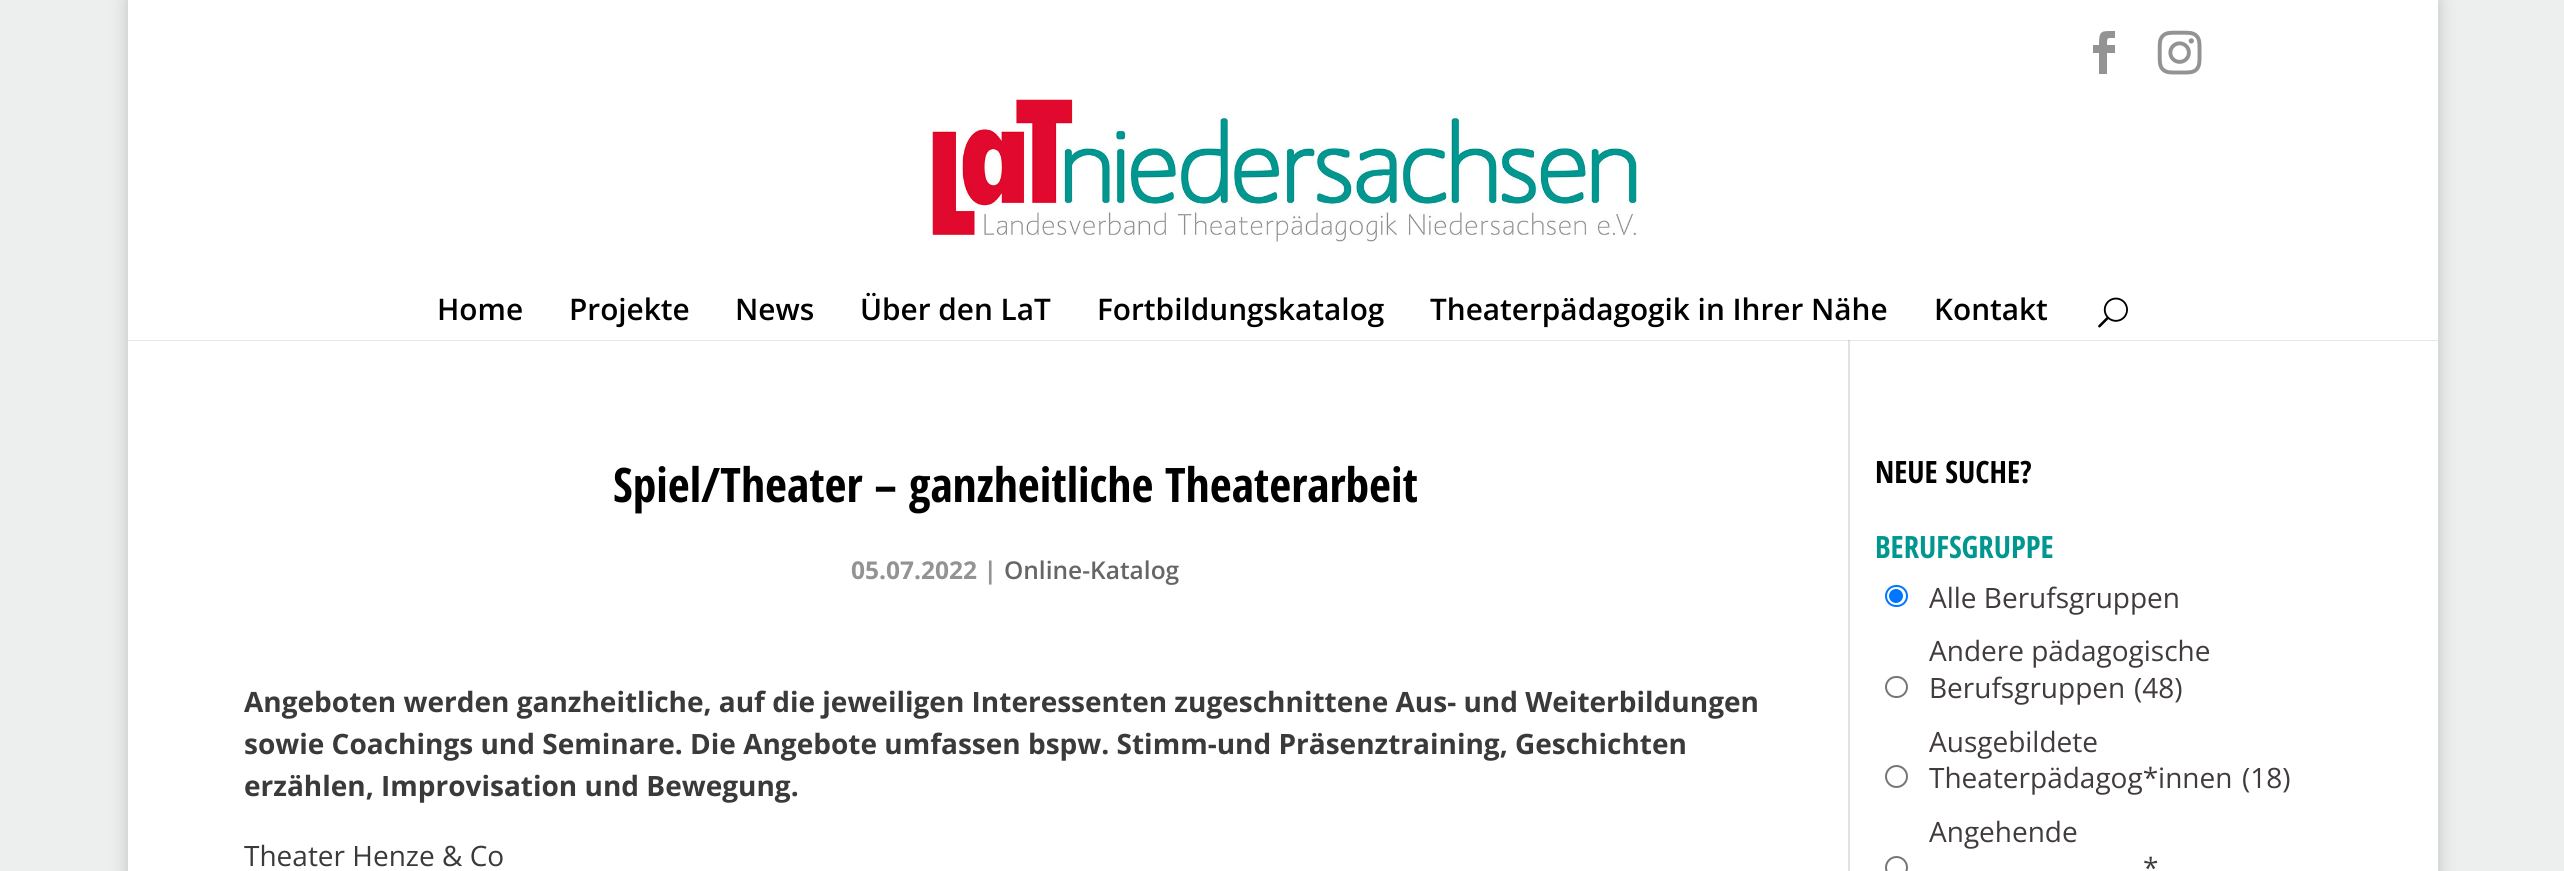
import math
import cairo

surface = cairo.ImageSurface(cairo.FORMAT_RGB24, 2564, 871)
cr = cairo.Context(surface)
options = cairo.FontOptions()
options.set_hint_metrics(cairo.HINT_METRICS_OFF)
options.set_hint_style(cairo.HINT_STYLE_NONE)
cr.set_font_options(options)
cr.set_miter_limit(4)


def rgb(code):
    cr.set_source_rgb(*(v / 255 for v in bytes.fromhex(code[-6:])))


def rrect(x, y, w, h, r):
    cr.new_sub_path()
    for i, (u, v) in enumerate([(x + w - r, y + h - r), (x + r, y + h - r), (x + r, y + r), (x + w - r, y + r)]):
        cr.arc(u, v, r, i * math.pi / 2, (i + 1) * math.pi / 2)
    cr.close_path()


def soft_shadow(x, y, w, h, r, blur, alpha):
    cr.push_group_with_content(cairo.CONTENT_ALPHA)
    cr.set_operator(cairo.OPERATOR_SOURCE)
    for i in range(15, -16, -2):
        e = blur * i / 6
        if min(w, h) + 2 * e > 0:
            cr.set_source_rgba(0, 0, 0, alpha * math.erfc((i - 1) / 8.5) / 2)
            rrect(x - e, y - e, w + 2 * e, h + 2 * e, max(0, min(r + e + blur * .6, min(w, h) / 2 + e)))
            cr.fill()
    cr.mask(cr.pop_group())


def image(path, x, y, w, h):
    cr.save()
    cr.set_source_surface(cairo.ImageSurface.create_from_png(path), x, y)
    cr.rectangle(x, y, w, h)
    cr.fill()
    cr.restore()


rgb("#edefef")
cr.paint()
rgb("#000000")
soft_shadow(128, 0, 2310, 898, 0, 9, 0.2)
rgb("#ffffff")
cr.rectangle(128, 0, 2310, 871)
cr.fill()
rgb("#939393")
cr.new_path()
cr.move_to(2099, 74)
cr.line_to(2107, 74)
cr.line_to(2107, 53)
cr.line_to(2115, 53)
cr.line_to(2115, 45)
cr.line_to(2107, 45)
cr.curve_to(2107, 37, 2107, 38, 2115, 38)
cr.line_to(2115, 31)
cr.curve_to(2101, 31, 2099, 30, 2099, 45)
cr.line_to(2093, 45)
cr.line_to(2093, 53)
cr.line_to(2099, 53)
cr.close_path()
cr.fill()
image("img/1.png", 2157, 30, 45, 45)
rgb("#e2e2e2")
cr.rectangle(1848, 338, 2, 533)
cr.fill()
cr.set_source_rgba(0, 0, 0, 0.1)
cr.new_path()
cr.move_to(128, 340)
cr.line_to(128, 341)
cr.line_to(2438, 341)
cr.line_to(2438, 79)
cr.line_to(2438, 340)
cr.close_path()
cr.fill()
rgb("#ffffff")
cr.rectangle(1848, 338, 2, 2)
cr.fill()
image("img/2.png", 932, 99, 705, 143)
image("img/3.png", 2098, 297, 30, 31)
rrect(1886, 586, 21, 20, 10)
rgb("#0075ff")
cr.stroke()
cr.arc(1896, 596, 7, 0, 2 * math.pi)
cr.fill()
rrect(1886, 677, 21, 20, 10)
rgb("#767676")
cr.stroke()
cr.arc(1896.5, 776.5, 10.5, 0, 2 * math.pi)
cr.stroke()
cr.arc(1896.5, 867.5, 10.5, 0, 2 * math.pi)
cr.stroke()
cr.select_font_face("Open Sans SemiBold")
cr.set_font_size(29.75)
rgb("#000000")
for x, y, s in [
    (437, 320, "Home"),
    (569, 320, "Projekte"),
    (735, 320, "News"),
    (860, 320, "Über den LaT"),
    (1097, 320, "Fortbildungskatalog"),
    (1430, 320, "Theaterpädagogik in Ihrer Nähe"),
    (1934, 320, "Kontakt"),
]:
    cr.move_to(x, y)
    cr.show_text(s)
cr.select_font_face("Open Sans Condensed", cairo.FONT_SLANT_NORMAL, cairo.FONT_WEIGHT_BOLD)
cr.set_font_size(47.6)
cr.move_to(613, 502)
cr.show_text("Spiel/Theater – ganzheitliche Theaterarbeit")
cr.select_font_face("Open Sans", cairo.FONT_SLANT_NORMAL, cairo.FONT_WEIGHT_BOLD)
cr.set_font_size(24.5)
rgb("#939393")
cr.move_to(851, 579)
cr.show_text("05.07.2022 |")
cr.select_font_face("Open Sans SemiBold")
rgb("#666666")
cr.move_to(1004, 579)
cr.show_text("Online-Katalog")
cr.select_font_face("Open Sans", cairo.FONT_SLANT_NORMAL, cairo.FONT_WEIGHT_BOLD)
cr.set_font_size(28)
rgb("#3a3a3a")
for x, y, s in [
    (244, 712, "Angeboten werden ganzheitliche, auf die jeweiligen Interessenten zugeschnittene Aus- und Weiterbildungen"),
    (244, 754, "sowie Coachings und Seminare. Die Angebote umfassen bspw. Stimm-und Präsenztraining, Geschichten"),
    (244, 796, "erzählen, Improvisation und Bewegung."),
]:
    cr.move_to(x, y)
    cr.show_text(s)
cr.select_font_face("Open Sans")
cr.move_to(244, 866)
cr.show_text("Theater Henze & Co")
cr.select_font_face("Open Sans Condensed", cairo.FONT_SLANT_NORMAL, cairo.FONT_WEIGHT_BOLD)
cr.set_font_size(30.75)
rgb("#000000")
cr.move_to(1875, 483)
cr.show_text("NEUE SUCHE?")
rgb("#009790")
cr.move_to(1875, 558)
cr.show_text("BERUFSGRUPPE")
cr.select_font_face("Open Sans")
cr.set_font_size(28)
rgb("#413b3e")
for x, y, s in [
    (1929, 608, "Alle Berufsgruppen"),
    (1929, 661, "Andere pädagogische"),
    (1929, 698, "Berufsgruppen"),
    (2134, 698, "(48)"),
    (1929, 752, "Ausgebildete"),
    (1929, 788, "Theaterpädagog*innen"),
    (2242, 788, "(18)"),
    (1929, 842, "Angehende"),
    (2143, 878, "*"),
]:
    cr.move_to(x, y)
    cr.show_text(s)
surface.write_to_png("page.png")
